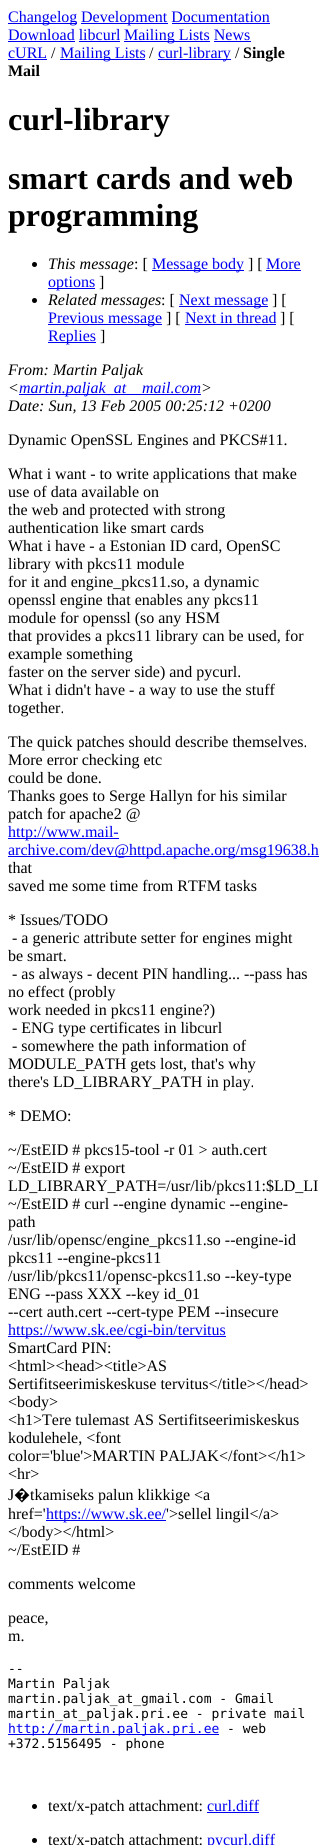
import math
import cairo

surface = cairo.ImageSurface(cairo.FORMAT_RGB24, 319, 1845)
cr = cairo.Context(surface)
options = cairo.FontOptions()
options.set_hint_metrics(cairo.HINT_METRICS_OFF)
options.set_hint_style(cairo.HINT_STYLE_NONE)
cr.set_font_options(options)
cr.set_miter_limit(4)


def rgb(code):
    cr.set_source_rgb(*(v / 255 for v in bytes.fromhex(code[-6:])))


rgb("#ffffff")
cr.paint()
for x, y, w, h, color in [
    (8, 23, 69, 1, "#0000ee"),
    (81, 23, 87, 1, "#0000ee"),
    (172, 23, 98, 1, "#0000ee"),
    (8, 41, 67, 1, "#0000ee"),
    (124, 41, 86, 1, "#0000ee"),
    (79, 41, 41, 1, "#0000ee"),
    (214, 41, 37, 1, "#0000ee"),
    (8, 59, 39, 1, "#0000ee"),
    (60, 59, 85, 1, "#0000ee"),
    (158, 59, 73, 1, "#0000ee"),
]:
    rgb(color)
    cr.rectangle(x, y, w, h)
    cr.fill()
rgb("#000000")
cr.arc(34.5, 264.5, 2.5, 0, 2 * math.pi)
cr.fill()
for x, y, w, h, color in [
    (152, 270, 92, 1, "#0000ee"),
    (266, 270, 35, 1, "#0000ee"),
    (48, 288, 47, 1, "#0000ee"),
]:
    rgb(color)
    cr.rectangle(x, y, w, h)
    cr.fill()
rgb("#000000")
cr.arc(34.5, 300.5, 2.5, 0, 2 * math.pi)
cr.fill()
for x, y, w, h, color in [
    (179, 306, 89, 1, "#0000ee"),
    (48, 324, 114, 1, "#0000ee"),
    (185, 324, 91, 1, "#0000ee"),
    (48, 342, 48, 1, "#0000ee"),
    (19, 394, 182, 1, "#0000ee"),
    (8, 838, 111, 1, "#0000ee"),
    (8, 856, 311, 1, "#0000ee"),
    (8, 1336, 218, 1, "#0000ee"),
    (46, 1520, 120, 1, "#0000ee"),
    (8, 1734, 211, 1, "#0000ee"),
]:
    rgb(color)
    cr.rectangle(x, y, w, h)
    cr.fill()
rgb("#000000")
cr.arc(34.5, 1806.5, 2.5, 0, 2 * math.pi)
cr.fill()
rgb("#0000ee")
cr.rectangle(207, 1812, 52, 1)
cr.fill()
rgb("#000000")
cr.arc(34.5, 1840.5, 2.5, 0, 2 * math.pi)
cr.fill()
cr.select_font_face("Liberation Serif")
cr.set_font_size(16)
rgb("#0000ee")
for x, y, s in [
    (8, 22, "Changelog"),
    (81, 22, "Development Documentation"),
    (8, 40, "Download libcurl"),
    (124, 40, "Mailing Lists News"),
    (8, 58, "cURL"),
]:
    cr.move_to(x, y)
    cr.show_text(s)
rgb("#000000")
cr.move_to(51, 58)
cr.show_text("/")
rgb("#0000ee")
cr.move_to(60, 58)
cr.show_text("Mailing Lists")
rgb("#000000")
cr.move_to(149, 58)
cr.show_text("/")
rgb("#0000ee")
cr.move_to(158, 58)
cr.show_text("curl-library")
rgb("#000000")
cr.move_to(235, 58)
cr.show_text("/")
cr.select_font_face("Liberation Serif", cairo.FONT_SLANT_NORMAL, cairo.FONT_WEIGHT_BOLD)
cr.move_to(243, 58)
cr.show_text("Single")
cr.move_to(8, 76)
cr.show_text("Mail")
cr.set_font_size(32)
for x, y, s in [
    (8, 130, "curl-library"),
    (8, 189, "smart cards and web"),
    (8, 226, "programming"),
]:
    cr.move_to(x, y)
    cr.show_text(s)
cr.select_font_face("Liberation Serif", cairo.FONT_SLANT_ITALIC)
cr.set_font_size(16)
cr.move_to(48, 269)
cr.show_text("This message")
cr.select_font_face("Liberation Serif")
cr.move_to(134, 269)
cr.show_text(": [")
rgb("#0000ee")
cr.move_to(152, 269)
cr.show_text("Message body")
rgb("#000000")
cr.move_to(248, 269)
cr.show_text("] [")
rgb("#0000ee")
cr.move_to(266, 269)
cr.show_text("More")
cr.move_to(48, 287)
cr.show_text("options")
rgb("#000000")
cr.move_to(99, 287)
cr.show_text("]")
cr.select_font_face("Liberation Serif", cairo.FONT_SLANT_ITALIC)
cr.move_to(48, 305)
cr.show_text("Related messages")
cr.select_font_face("Liberation Serif")
cr.move_to(161, 305)
cr.show_text(": [")
rgb("#0000ee")
cr.move_to(179, 305)
cr.show_text("Next message")
rgb("#000000")
cr.move_to(272, 305)
cr.show_text("] [")
rgb("#0000ee")
cr.move_to(48, 323)
cr.show_text("Previous message")
rgb("#000000")
cr.move_to(166, 323)
cr.show_text("] [")
rgb("#0000ee")
cr.move_to(185, 323)
cr.show_text("Next in thread")
rgb("#000000")
cr.move_to(280, 323)
cr.show_text("] [")
rgb("#0000ee")
cr.move_to(48, 341)
cr.show_text("Replies")
rgb("#000000")
cr.move_to(100, 341)
cr.show_text("]")
cr.select_font_face("Liberation Serif", cairo.FONT_SLANT_ITALIC)
cr.move_to(8, 375)
cr.show_text("From: Martin Paljak")
cr.move_to(8, 393)
cr.show_text("<")
rgb("#0000ee")
cr.move_to(19, 393)
cr.show_text("martin.paljak_at")
cr.move_to(142, 393)
cr.show_text("mail.com")
rgb("#000000")
cr.move_to(201, 393)
cr.show_text(">")
cr.move_to(8, 411)
cr.show_text("Date: Sun, 13 Feb 2005 00:25:12 +0200")
cr.select_font_face("Liberation Serif")
for x, y, s in [
    (8, 445, "Dynamic OpenSSL Engines and PKCS#11."),
    (8, 479, "What i want - to write applications that make"),
    (8, 497, "use of data available on"),
    (8, 515, "the web and protected with strong"),
    (8, 533, "authentication like smart cards"),
    (8, 551, "What i have - a Estonian ID card, OpenSC"),
    (8, 569, "library with pkcs11 module"),
    (8, 587, "for it and engine_pkcs11.so, a dynamic"),
    (8, 605, "openssl engine that enables any pkcs11"),
    (8, 623, "module for openssl (so any HSM"),
    (8, 641, "that provides a pkcs11 library can be used, for"),
    (8, 659, "example something"),
    (8, 677, "faster on the server side) and pycurl."),
    (8, 695, "What i didn't have - a way to use the stuff"),
    (8, 713, "together."),
    (8, 747, "The quick patches should describe themselves."),
    (8, 765, "More error checking etc"),
    (8, 783, "could be done."),
    (8, 801, "Thanks goes to Serge Hallyn for his similar"),
    (8, 819, "patch for apache2 @"),
]:
    cr.move_to(x, y)
    cr.show_text(s)
rgb("#0000ee")
cr.move_to(8, 837)
cr.show_text("http://www.mail-")
cr.move_to(8, 855)
cr.show_text("archive.com/dev@httpd.apache.org/msg19638.h")
rgb("#000000")
for x, y, s in [
    (8, 873, "that"),
    (8, 891, "saved me some time from RTFM tasks"),
    (8, 925, "* Issues/TODO"),
    (12, 943, "- a generic attribute setter for engines might"),
    (8, 961, "be smart."),
    (12, 979, "- as always - decent PIN handling... --pass has"),
    (8, 997, "no effect (probly"),
    (8, 1015, "work needed in pkcs11 engine?)"),
    (12, 1033, "- ENG type certificates in libcurl"),
    (12, 1051, "- somewhere the path information of"),
    (8, 1069, "MODULE_PATH gets lost, that's why"),
    (8, 1087, "there's LD_LIBRARY_PATH in play."),
    (8, 1121, "* DEMO:"),
    (8, 1155, "~/EstEID # pkcs15-tool -r 01 > auth.cert"),
    (8, 1173, "~/EstEID # export"),
    (8, 1191, "LD_LIBRARY_PATH=/usr/lib/pkcs11:$LD_LI"),
    (8, 1209, "~/EstEID # curl --engine dynamic --engine-"),
    (8, 1227, "path"),
    (8, 1245, "/usr/lib/opensc/engine_pkcs11.so --engine-id"),
    (8, 1263, "pkcs11 --engine-pkcs11"),
    (8, 1281, "/usr/lib/pkcs11/opensc-pkcs11.so --key-type"),
    (8, 1299, "ENG --pass XXX --key id_01"),
    (8, 1317, "--cert auth.cert --cert-type PEM --insecure"),
]:
    cr.move_to(x, y)
    cr.show_text(s)
rgb("#0000ee")
cr.move_to(8, 1335)
cr.show_text("https://www.sk.ee/cgi-bin/tervitus")
rgb("#000000")
for x, y, s in [
    (8, 1353, "SmartCard PIN:"),
    (8, 1371, "<html><head><title>AS"),
    (8, 1389, "Sertifitseerimiskeskuse tervitus</title></head>"),
    (8, 1407, "<body>"),
    (8, 1425, "<h1>Tere tulemast AS Sertifitseerimiskeskus"),
    (8, 1443, "kodulehele, <font"),
    (8, 1461, "color='blue'>MARTIN PALJAK</font></h1>"),
    (8, 1479, "<hr>"),
    (8, 1500, "J"),
]:
    cr.move_to(x, y)
    cr.show_text(s)
cr.select_font_face("Noto Sans")
cr.move_to(14, 1500)
cr.show_text("�")
cr.select_font_face("Liberation Serif")
cr.move_to(30, 1500)
cr.show_text("tkamiseks palun klikkige <a")
cr.move_to(8, 1519)
cr.show_text("href='")
rgb("#0000ee")
cr.move_to(46, 1519)
cr.show_text("https://www.sk.ee/")
rgb("#000000")
for x, y, s in [
    (166, 1519, "'>sellel lingil</a>"),
    (8, 1537, "</body></html>"),
    (8, 1555, "~/EstEID #"),
    (8, 1589, "comments welcome"),
    (8, 1623, "peace,"),
    (8, 1641, "m."),
]:
    cr.move_to(x, y)
    cr.show_text(s)
cr.select_font_face("DejaVu Sans Mono")
cr.set_font_size(13)
for x, y, s in [
    (8, 1673, "--"),
    (8, 1688, "Martin Paljak"),
    (8, 1703, "martin.paljak_at_gmail.com - Gmail"),
    (8, 1718, "martin_at_paljak.pri.ee - private mail"),
]:
    cr.move_to(x, y)
    cr.show_text(s)
rgb("#0000ee")
cr.move_to(8, 1733)
cr.show_text("http://martin.paljak.pri.ee")
rgb("#000000")
cr.move_to(227, 1733)
cr.show_text("- web")
cr.move_to(8, 1748)
cr.show_text("+372.5156495 - phone")
cr.select_font_face("Liberation Serif")
cr.set_font_size(16)
cr.move_to(48, 1811)
cr.show_text("text/x-patch attachment:")
rgb("#0000ee")
cr.move_to(207, 1811)
cr.show_text("curl.diff")
rgb("#000000")
cr.move_to(48, 1845)
cr.show_text("text/x-patch attachment:")
rgb("#0000ee")
cr.move_to(207, 1845)
cr.show_text("pycurl.diff")
surface.write_to_png("page.png")
